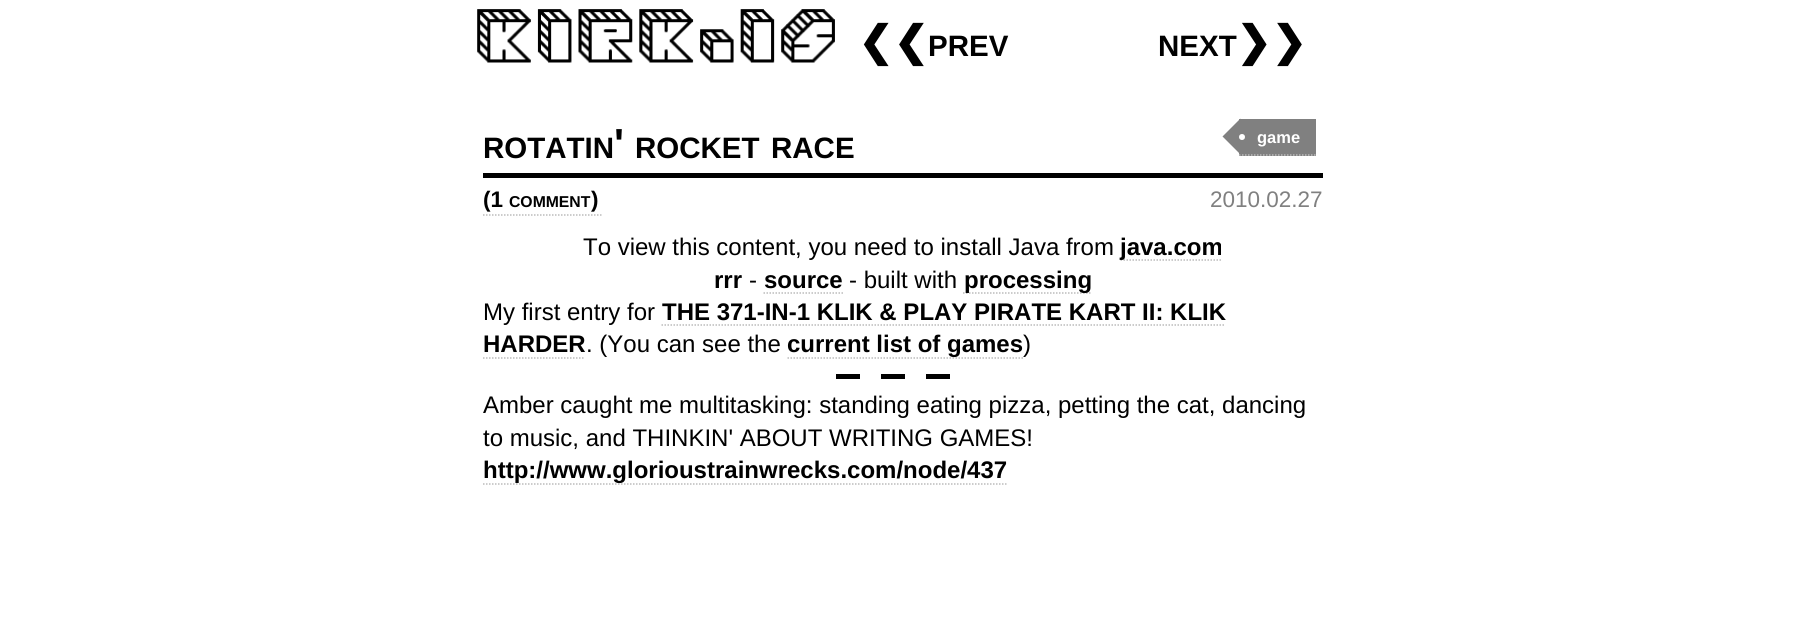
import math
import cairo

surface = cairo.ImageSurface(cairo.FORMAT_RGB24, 1806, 639)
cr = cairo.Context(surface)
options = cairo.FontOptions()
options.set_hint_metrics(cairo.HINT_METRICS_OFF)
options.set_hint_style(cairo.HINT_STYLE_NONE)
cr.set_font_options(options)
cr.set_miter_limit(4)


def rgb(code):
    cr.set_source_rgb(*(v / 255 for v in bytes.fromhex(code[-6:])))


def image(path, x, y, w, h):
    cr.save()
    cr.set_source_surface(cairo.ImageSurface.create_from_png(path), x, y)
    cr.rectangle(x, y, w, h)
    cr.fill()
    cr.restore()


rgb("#ffffff")
cr.paint()
image("img/1.png", 477, 9, 358, 54)
rgb("#000000")
cr.rectangle(483, 173, 840, 5)
cr.fill()
rgb("#808080")
cr.rectangle(1239, 119, 77, 37)
cr.fill()
cr.new_path()
cr.move_to(1239, 155)
cr.line_to(1315.5, 155)
rgb("#bbbbbb")
cr.set_line_width(1.5)
cr.set_dash([1.5, 1.5])
cr.stroke()
rgb("#808080")
cr.new_path()
cr.move_to(1240.5, 118.5)
cr.line_to(1240.5, 154.5)
cr.line_to(1222.5, 136.5)
cr.close_path()
cr.fill()
rgb("#ffffff")
cr.arc(1242, 137, 3, 0, 2 * math.pi)
cr.fill()
cr.new_path()
cr.move_to(483, 215)
cr.line_to(601.5, 215)
rgb("#bbbbbb")
cr.stroke()
cr.new_path()
cr.move_to(1120.5, 260)
cr.line_to(1222.5, 260)
cr.stroke()
cr.new_path()
cr.move_to(763.5, 293)
cr.line_to(843, 293)
cr.stroke()
cr.new_path()
cr.move_to(963, 293)
cr.line_to(1092, 293)
cr.stroke()
cr.new_path()
cr.move_to(661.5, 325)
cr.line_to(1225.5, 325)
cr.stroke()
cr.new_path()
cr.move_to(483, 358)
cr.line_to(585, 358)
cr.stroke()
cr.new_path()
cr.move_to(787.5, 358)
cr.line_to(1023, 358)
cr.stroke()
for x, y, w, h, color in [
    (836, 374, 24, 5, "#000000"),
    (881, 374, 24, 5, "#000000"),
    (926, 374, 24, 5, "#000000"),
]:
    rgb(color)
    cr.rectangle(x, y, w, h)
    cr.fill()
cr.new_path()
cr.move_to(483, 484)
cr.line_to(1006.5, 484)
rgb("#bbbbbb")
cr.stroke()
cr.select_font_face("DejaVu Sans", cairo.FONT_SLANT_NORMAL, cairo.FONT_WEIGHT_BOLD)
cr.set_font_size(42)
rgb("#000000")
cr.move_to(858, 56)
cr.show_text("❮❮")
cr.select_font_face("Liberation Sans", cairo.FONT_SLANT_NORMAL, cairo.FONT_WEIGHT_BOLD)
cr.set_font_size(29.5)
cr.move_to(928, 56)
cr.show_text("PREV")
cr.move_to(1158, 56)
cr.show_text("NEXT")
cr.select_font_face("DejaVu Sans", cairo.FONT_SLANT_NORMAL, cairo.FONT_WEIGHT_BOLD)
cr.set_font_size(42)
cr.move_to(1236, 56)
cr.show_text("❯❯")
cr.select_font_face("Liberation Sans", cairo.FONT_SLANT_NORMAL, cairo.FONT_WEIGHT_BOLD)
cr.move_to(614, 158)
cr.show_text("'")
cr.set_font_size(29.5)
for x, y, s in [
    (483, 158, "ROTATIN"),
    (635, 158, "ROCKET"),
    (771, 158, "RACE"),
]:
    cr.move_to(x, y)
    cr.show_text(s)
cr.set_font_size(16.5)
rgb("#ffffff")
cr.move_to(1257, 143)
cr.show_text("game")
cr.set_font_size(22.5)
rgb("#000000")
cr.move_to(483, 207)
cr.show_text("(1")
cr.set_font_size(15.75)
cr.move_to(509, 207)
cr.show_text("COMMENT")
cr.set_font_size(22.5)
cr.move_to(591, 207)
cr.show_text(")")
cr.select_font_face("Liberation Sans")
rgb("#808080")
cr.move_to(1210, 207)
cr.show_text("2010.02.27")
cr.set_font_size(24)
rgb("#000000")
cr.move_to(583, 255)
cr.show_text("To view this content, you need to install Java from")
cr.select_font_face("Liberation Sans", cairo.FONT_SLANT_NORMAL, cairo.FONT_WEIGHT_BOLD)
cr.move_to(1120, 255)
cr.show_text("java.com")
cr.move_to(714, 288)
cr.show_text("rrr")
cr.select_font_face("Liberation Sans")
cr.move_to(749, 288)
cr.show_text("-")
cr.select_font_face("Liberation Sans", cairo.FONT_SLANT_NORMAL, cairo.FONT_WEIGHT_BOLD)
cr.move_to(764, 288)
cr.show_text("source")
cr.select_font_face("Liberation Sans")
cr.move_to(849, 288)
cr.show_text("- built with")
cr.select_font_face("Liberation Sans", cairo.FONT_SLANT_NORMAL, cairo.FONT_WEIGHT_BOLD)
cr.move_to(964, 288)
cr.show_text("processing")
cr.select_font_face("Liberation Sans")
cr.move_to(483, 320)
cr.show_text("My first entry for")
cr.select_font_face("Liberation Sans", cairo.FONT_SLANT_NORMAL, cairo.FONT_WEIGHT_BOLD)
cr.move_to(662, 320)
cr.show_text("THE 371-IN-1 KLIK & PLAY PIRATE KART II: KLIK")
cr.move_to(483, 352)
cr.show_text("HARDER")
cr.select_font_face("Liberation Sans")
cr.move_to(586, 352)
cr.show_text(". (You can see the")
cr.select_font_face("Liberation Sans", cairo.FONT_SLANT_NORMAL, cairo.FONT_WEIGHT_BOLD)
cr.move_to(787, 352)
cr.show_text("current list of games")
cr.select_font_face("Liberation Sans")
for x, y, s in [
    (1023, 352, ")"),
    (483, 413, "Amber caught me multitasking: standing eating pizza, petting the cat, dancing"),
    (483, 446, "to music, and THINKIN' ABOUT WRITING GAMES!"),
]:
    cr.move_to(x, y)
    cr.show_text(s)
cr.select_font_face("Liberation Sans", cairo.FONT_SLANT_NORMAL, cairo.FONT_WEIGHT_BOLD)
cr.move_to(483, 478)
cr.show_text("http://www.glorioustrainwrecks.com/node/437")
surface.write_to_png("page.png")
